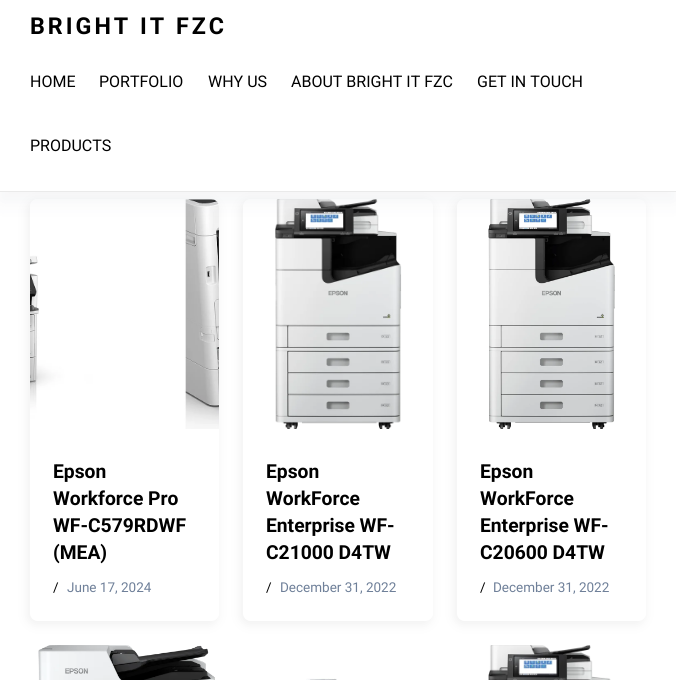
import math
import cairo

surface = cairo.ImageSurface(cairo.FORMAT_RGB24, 676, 680)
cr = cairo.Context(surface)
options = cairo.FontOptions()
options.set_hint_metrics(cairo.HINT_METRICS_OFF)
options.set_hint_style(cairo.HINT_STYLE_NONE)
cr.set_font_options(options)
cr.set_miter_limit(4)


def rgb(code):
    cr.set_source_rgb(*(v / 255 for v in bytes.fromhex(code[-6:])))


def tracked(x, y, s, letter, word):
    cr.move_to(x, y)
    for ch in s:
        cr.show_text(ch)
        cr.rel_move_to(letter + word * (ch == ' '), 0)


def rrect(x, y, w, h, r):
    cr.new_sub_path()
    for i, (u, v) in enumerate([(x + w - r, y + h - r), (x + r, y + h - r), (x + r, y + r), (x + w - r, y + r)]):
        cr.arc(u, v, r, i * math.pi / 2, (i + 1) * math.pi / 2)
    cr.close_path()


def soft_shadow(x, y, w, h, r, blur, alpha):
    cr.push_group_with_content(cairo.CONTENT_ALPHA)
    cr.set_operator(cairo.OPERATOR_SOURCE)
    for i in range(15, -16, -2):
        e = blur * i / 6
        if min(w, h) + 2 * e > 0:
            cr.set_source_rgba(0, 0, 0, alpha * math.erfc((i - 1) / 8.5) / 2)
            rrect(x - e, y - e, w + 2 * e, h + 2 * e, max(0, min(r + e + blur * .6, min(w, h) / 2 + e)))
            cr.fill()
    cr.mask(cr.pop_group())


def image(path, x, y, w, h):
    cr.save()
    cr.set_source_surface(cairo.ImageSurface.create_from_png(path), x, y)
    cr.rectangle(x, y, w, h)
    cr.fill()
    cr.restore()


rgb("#ffffff")
cr.paint()
cr.save()
cr.set_fill_rule(cairo.FILL_RULE_EVEN_ODD)
cr.new_path()
cr.move_to(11, 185)
cr.line_to(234, 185)
cr.line_to(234, 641)
cr.line_to(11, 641)
cr.close_path()
cr.move_to(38, 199)
cr.line_to(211, 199)
cr.curve_to(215.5, 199, 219, 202.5, 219, 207)
cr.line_to(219, 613)
cr.curve_to(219, 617.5, 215.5, 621, 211, 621)
cr.line_to(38, 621)
cr.curve_to(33.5, 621, 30, 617.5, 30, 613)
cr.line_to(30, 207)
cr.curve_to(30, 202.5, 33.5, 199, 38, 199)
cr.close_path()
cr.clip()
rgb("#cacaca")
soft_shadow(27, 201, 191, 424, 9, 5, 0.26)
cr.restore()
image("img/1.png", 30, 199, 189, 230)
cr.save()
cr.set_fill_rule(cairo.FILL_RULE_EVEN_ODD)
cr.new_path()
cr.move_to(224, 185)
cr.line_to(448, 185)
cr.line_to(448, 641)
cr.line_to(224, 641)
cr.close_path()
cr.move_to(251, 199)
cr.line_to(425, 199)
cr.curve_to(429.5, 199, 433, 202.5, 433, 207)
cr.line_to(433, 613)
cr.curve_to(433, 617.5, 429.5, 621, 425, 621)
cr.line_to(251, 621)
cr.curve_to(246.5, 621, 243, 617.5, 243, 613)
cr.line_to(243, 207)
cr.curve_to(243, 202.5, 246.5, 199, 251, 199)
cr.close_path()
cr.clip()
rgb("#cacaca")
soft_shadow(240, 201, 192, 424, 9, 5, 0.26)
cr.restore()
image("img/2.png", 275, 199, 127, 230)
cr.save()
cr.set_fill_rule(cairo.FILL_RULE_EVEN_ODD)
cr.new_path()
cr.move_to(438, 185)
cr.line_to(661, 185)
cr.line_to(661, 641)
cr.line_to(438, 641)
cr.close_path()
cr.move_to(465, 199)
cr.line_to(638, 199)
cr.curve_to(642.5, 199, 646, 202.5, 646, 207)
cr.line_to(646, 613)
cr.curve_to(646, 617.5, 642.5, 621, 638, 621)
cr.line_to(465, 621)
cr.curve_to(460.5, 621, 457, 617.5, 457, 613)
cr.line_to(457, 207)
cr.curve_to(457, 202.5, 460.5, 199, 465, 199)
cr.close_path()
cr.clip()
rgb("#cacaca")
soft_shadow(454, 201, 191, 424, 9, 5, 0.26)
cr.restore()
image("img/3.png", 488, 199, 127, 230)
rgb("#2c3e50")
soft_shadow(0, 0, 676, 202, 0, 10, 0.05)
rgb("#ffffff")
cr.rectangle(0, 0, 676, 191)
cr.fill()
rgb("#eaeaea")
cr.rectangle(0, 191, 676, 1)
cr.fill()
image("img/4.png", 38, 645, 177, 35)
image("img/5.png", 306, 678, 31, 2)
image("img/6.png", 488, 645, 123, 35)
cr.select_font_face("Roboto", cairo.FONT_SLANT_NORMAL, cairo.FONT_WEIGHT_BOLD)
cr.set_font_size(23.25)
rgb("#000000")
tracked(30, 34, "BRIGHT IT FZC", 3, 0)
cr.select_font_face("Roboto")
cr.set_font_size(16)
for x, y, s in [
    (30, 87, "HOME"),
    (99, 87, "PORTFOLIO"),
    (208, 87, "WHY US"),
    (291, 87, "ABOUT BRIGHT IT FZC"),
    (477, 87, "GET IN TOUCH"),
    (30, 151, "PRODUCTS"),
]:
    cr.move_to(x, y)
    cr.show_text(s)
cr.select_font_face("Roboto", cairo.FONT_SLANT_NORMAL, cairo.FONT_WEIGHT_BOLD)
cr.set_font_size(19.25)
for x, y, s in [
    (53, 478, "Epson"),
    (53, 505, "Workforce Pro"),
    (53, 532, "WF-C579RDWF"),
    (53, 559, "(MEA)"),
]:
    cr.move_to(x, y)
    cr.show_text(s)
cr.select_font_face("Roboto")
cr.set_font_size(13.5)
cr.move_to(53, 592)
cr.show_text("/")
rgb("#6f8099")
cr.move_to(67, 592)
cr.show_text("June 17, 2024")
cr.select_font_face("Roboto", cairo.FONT_SLANT_NORMAL, cairo.FONT_WEIGHT_BOLD)
cr.set_font_size(19.25)
rgb("#000000")
for x, y, s in [
    (266, 478, "Epson"),
    (266, 505, "WorkForce"),
    (266, 532, "Enterprise WF-"),
    (266, 559, "C21000 D4TW"),
]:
    cr.move_to(x, y)
    cr.show_text(s)
cr.select_font_face("Roboto")
cr.set_font_size(13.5)
cr.move_to(266, 592)
cr.show_text("/")
rgb("#6f8099")
cr.move_to(280, 592)
cr.show_text("December 31, 2022")
cr.select_font_face("Roboto", cairo.FONT_SLANT_NORMAL, cairo.FONT_WEIGHT_BOLD)
cr.set_font_size(19.25)
rgb("#000000")
for x, y, s in [
    (480, 478, "Epson"),
    (480, 505, "WorkForce"),
    (480, 532, "Enterprise WF-"),
    (480, 559, "C20600 D4TW"),
]:
    cr.move_to(x, y)
    cr.show_text(s)
cr.select_font_face("Roboto")
cr.set_font_size(13.5)
cr.move_to(480, 592)
cr.show_text("/")
rgb("#6f8099")
cr.move_to(493, 592)
cr.show_text("December 31, 2022")
surface.write_to_png("page.png")
